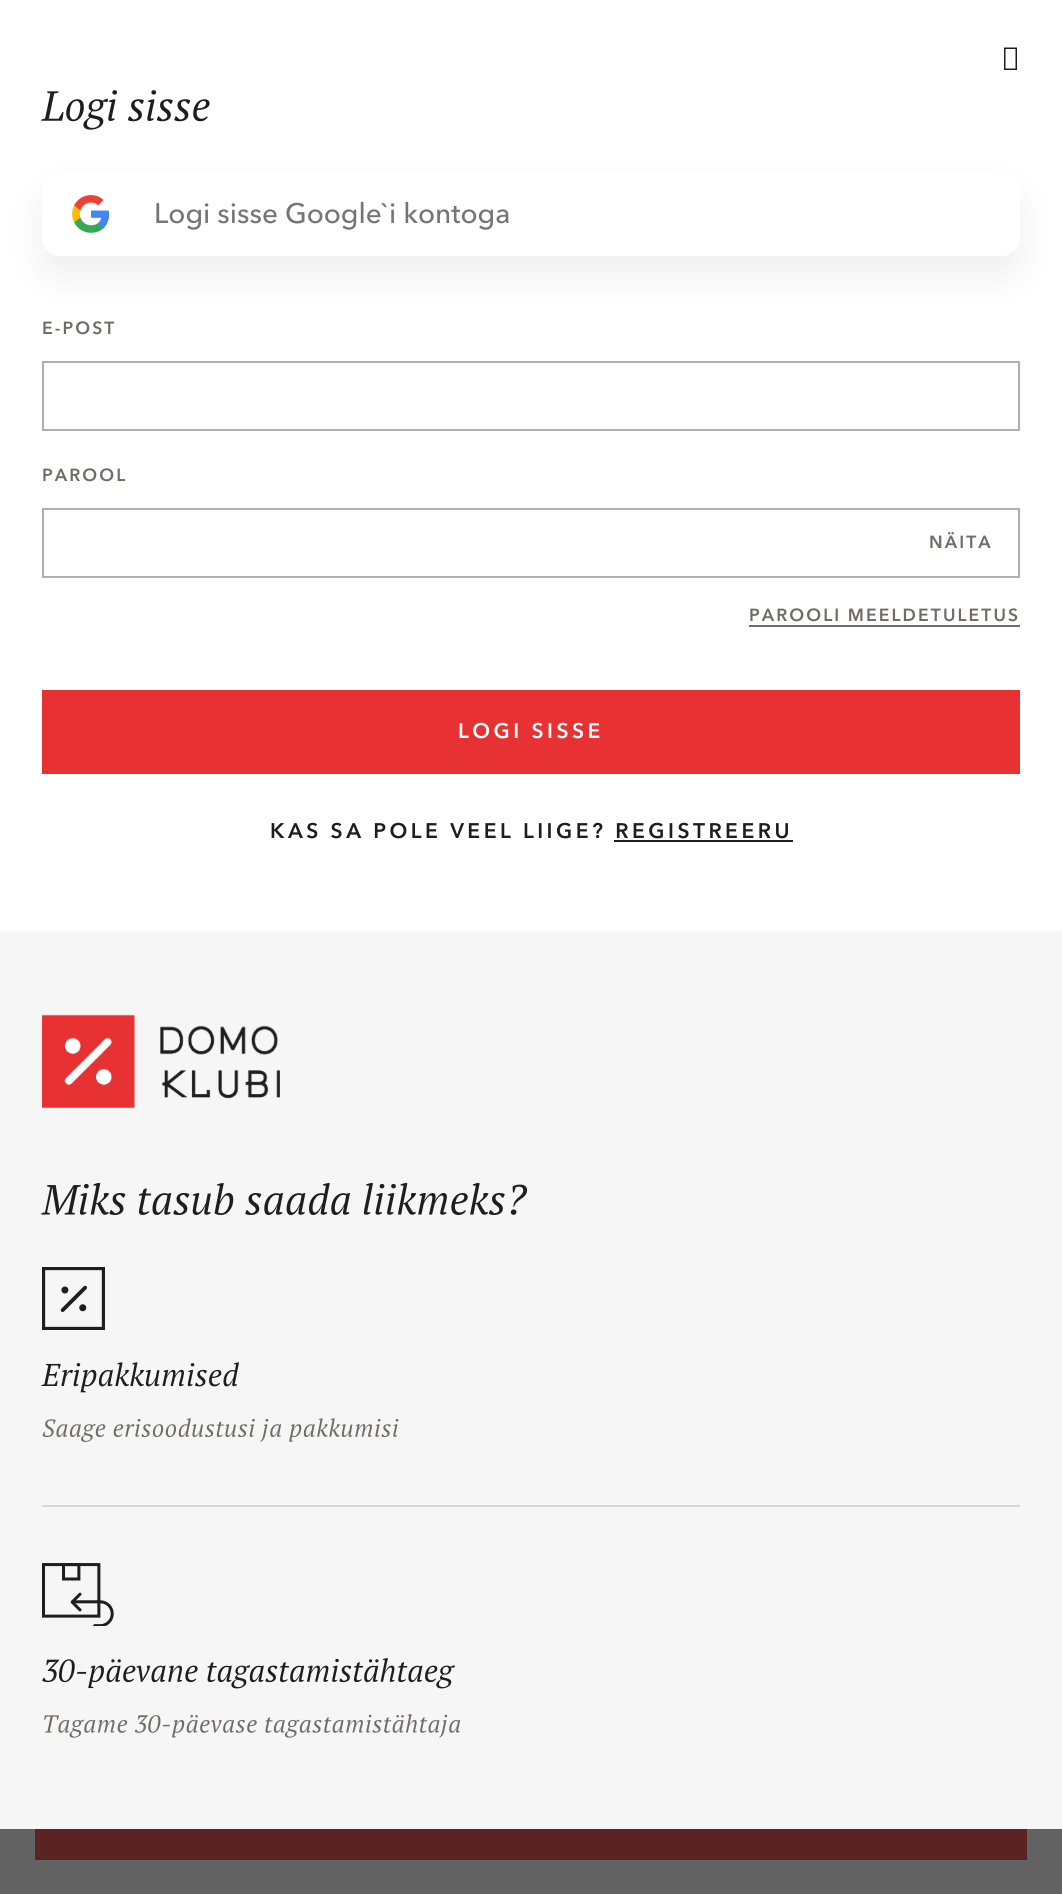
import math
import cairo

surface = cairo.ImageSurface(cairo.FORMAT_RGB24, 1062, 1894)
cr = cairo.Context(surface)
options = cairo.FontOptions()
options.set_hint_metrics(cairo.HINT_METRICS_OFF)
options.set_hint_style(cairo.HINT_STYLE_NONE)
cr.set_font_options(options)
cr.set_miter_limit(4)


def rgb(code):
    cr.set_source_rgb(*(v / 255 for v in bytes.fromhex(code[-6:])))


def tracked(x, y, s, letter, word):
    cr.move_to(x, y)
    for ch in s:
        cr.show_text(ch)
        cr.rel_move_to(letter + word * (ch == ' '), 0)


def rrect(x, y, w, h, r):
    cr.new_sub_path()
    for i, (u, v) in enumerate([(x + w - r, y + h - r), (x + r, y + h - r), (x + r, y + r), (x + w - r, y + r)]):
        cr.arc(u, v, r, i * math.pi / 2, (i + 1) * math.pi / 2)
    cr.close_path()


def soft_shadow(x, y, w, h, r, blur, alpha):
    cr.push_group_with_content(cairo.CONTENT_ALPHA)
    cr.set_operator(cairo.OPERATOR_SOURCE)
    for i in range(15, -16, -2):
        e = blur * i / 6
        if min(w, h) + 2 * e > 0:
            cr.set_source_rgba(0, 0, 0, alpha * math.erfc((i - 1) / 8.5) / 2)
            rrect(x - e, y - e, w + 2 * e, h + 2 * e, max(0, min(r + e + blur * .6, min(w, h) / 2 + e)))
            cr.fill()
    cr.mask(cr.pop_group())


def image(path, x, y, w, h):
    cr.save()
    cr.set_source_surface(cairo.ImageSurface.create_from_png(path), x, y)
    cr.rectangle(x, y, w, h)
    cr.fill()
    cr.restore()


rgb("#626262")
cr.paint()
rgb("#ffffff")
cr.rectangle(0, 0, 1062, 931)
cr.fill()
rgb("#1e1e1e")
cr.new_path()
cr.move_to(1004, 70)
cr.line_to(1004, 47.5)
cr.line_to(1017, 47.5)
cr.line_to(1017, 70)
cr.close_path()
cr.move_to(1005.5, 68.5)
cr.line_to(1015.5, 68.5)
cr.line_to(1015.5, 49)
cr.line_to(1005.5, 49)
cr.close_path()
cr.fill()
cr.save()
cr.set_fill_rule(cairo.FILL_RULE_EVEN_ODD)
cr.new_path()
cr.move_to(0, 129)
cr.line_to(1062, 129)
cr.line_to(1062, 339)
cr.line_to(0, 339)
cr.close_path()
cr.move_to(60, 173)
cr.line_to(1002, 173)
cr.curve_to(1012, 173, 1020, 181, 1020, 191)
cr.line_to(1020, 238)
cr.curve_to(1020, 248, 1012, 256, 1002, 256)
cr.line_to(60, 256)
cr.curve_to(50, 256, 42, 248, 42, 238)
cr.line_to(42, 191)
cr.curve_to(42, 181, 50, 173, 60, 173)
cr.close_path()
cr.clip()
rgb("#000000")
soft_shadow(42, 193, 978, 82, 18, 21, 0.07)
cr.restore()
image("img/1.png", 41, 90, 169, 40)
image("img/2.png", 72, 195, 38, 38)
cr.rectangle(43, 362, 976, 68)
rgb("#afafaf")
cr.stroke()
cr.rectangle(43, 509, 976, 68)
cr.stroke()
for x, y, w, h, color in [
    (749, 625, 271, 2, "#716b66"),
    (42, 690, 978, 84, "#e73132"),
    (614, 840, 179, 2, "#1e1e1e"),
    (0, 931, 1062, 898, "#f6f6f6"),
]:
    rgb(color)
    cr.rectangle(x, y, w, h)
    cr.fill()
image("img/3.png", 42, 1014, 238, 94)
image("img/4.png", 41, 1182, 487, 33)
rgb("#d9d9d9")
cr.rectangle(42, 1505, 978, 2)
cr.fill()
image("img/5.png", 42, 1267, 63, 63)
image("img/6.png", 41, 1362, 198, 31)
image("img/7.png", 42, 1418, 357, 24)
image("img/8.png", 42, 1563, 72, 63)
image("img/9.png", 42, 1658, 413, 31)
image("img/10.png", 44, 1714, 417, 24)
rgb("#5a2424")
cr.rectangle(35, 1829, 992, 31)
cr.fill()
cr.select_font_face("Avenir Next Medium")
cr.set_font_size(28)
rgb("#757575")
cr.move_to(154, 223)
cr.show_text("Logi sisse Google`i kontoga")
cr.select_font_face("Avenir Next SemiBold")
cr.set_font_size(17.5)
rgb("#716b66")
for x, y, s in [
    (42, 334, "E-POST"),
    (42, 481, "PAROOL"),
    (929, 548, "NÄITA"),
    (749, 621, "PAROOLI MEELDETULETUS"),
]:
    tracked(x, y, s, 2.1, 0)
cr.set_font_size(21)
rgb("#ffffff")
tracked(458, 738, "LOGI SISSE", 3.5, 0)
rgb("#1e1e1e")
tracked(270, 838, "KAS SA POLE VEEL LIIGE? REGISTREERU", 3.5, 0)
surface.write_to_png("page.png")
